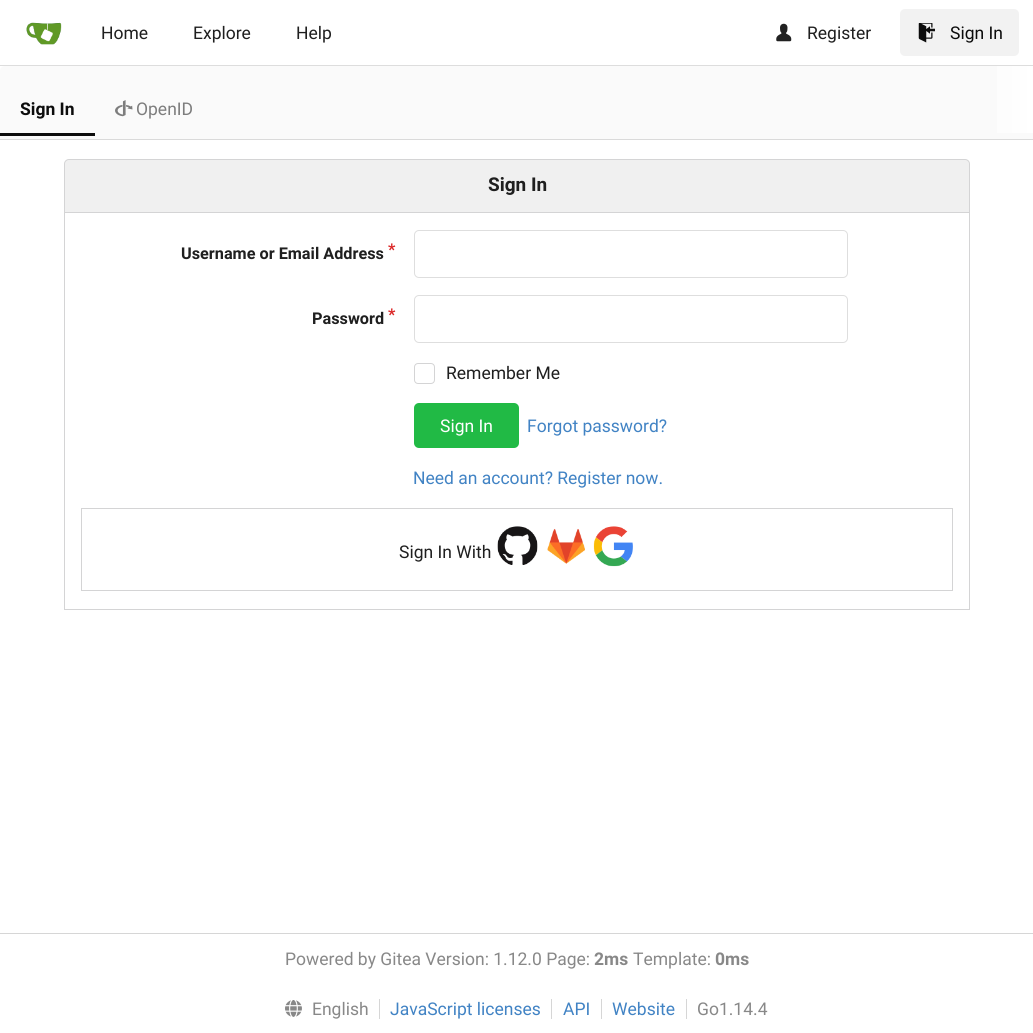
import math
import cairo

surface = cairo.ImageSurface(cairo.FORMAT_RGB24, 1033, 1033)
cr = cairo.Context(surface)
options = cairo.FontOptions()
options.set_hint_metrics(cairo.HINT_METRICS_OFF)
options.set_hint_style(cairo.HINT_STYLE_NONE)
cr.set_font_options(options)
cr.set_miter_limit(4)


def rgb(code):
    cr.set_source_rgb(*(v / 255 for v in bytes.fromhex(code[-6:])))


def rrect(x, y, w, h, r):
    cr.new_sub_path()
    for i, (u, v) in enumerate([(x + w - r, y + h - r), (x + r, y + h - r), (x + r, y + r), (x + w - r, y + r)]):
        cr.arc(u, v, r, i * math.pi / 2, (i + 1) * math.pi / 2)
    cr.close_path()


def image(path, x, y, w, h):
    cr.save()
    cr.set_source_surface(cairo.ImageSurface.create_from_png(path), x, y)
    cr.rectangle(x, y, w, h)
    cr.fill()
    cr.restore()


rgb("#ffffff")
cr.paint()
rgb("#dddddd")
cr.rectangle(0, 65, 1033, 1)
cr.fill()
image("img/1.png", 26, 22, 36, 23)
image("img/2.png", 776, 23, 16, 19)
rgb("#f2f2f2")
rrect(900, 9, 119, 47, 5)
cr.fill()
image("img/3.png", 918, 23, 17, 20)
rgb("#fafafa")
cr.new_path()
cr.move_to(5, 66)
cr.line_to(1029, 66)
cr.curve_to(1032, 66, 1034, 68, 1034, 71)
cr.line_to(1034, 140)
cr.line_to(0, 140)
cr.line_to(0, 71)
cr.curve_to(0, 68, 2, 66, 5, 66)
cr.close_path()
cr.fill()
rgb("#dadada")
cr.rectangle(0, 139, 1033, 1)
cr.fill()
rgb("#0d0d0d")
cr.rectangle(0, 133, 95, 3)
cr.fill()
image("img/4.png", 115, 100, 18, 17)
gradient = cairo.LinearGradient(959, 99, 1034, 99)
gradient.add_color_stop_rgba(0, 0.98, 0.98, 0.98, 1)
gradient.add_color_stop_rgba(1, 1, 1, 1, 1)
cr.set_source(gradient)
cr.rectangle(997, 66, 36, 67)
cr.fill()
rgb("#f0f0f0")
cr.new_path()
cr.move_to(69, 159.5)
cr.line_to(965, 159.5)
cr.curve_to(967.5, 159.5, 969.5, 161.5, 969.5, 164)
cr.line_to(969.5, 212.5)
cr.line_to(64.5, 212.5)
cr.line_to(64.5, 164)
cr.curve_to(64.5, 161.5, 66.5, 159.5, 69, 159.5)
cr.close_path()
cr.fill_preserve()
rgb("#d4d4d5")
cr.set_line_width(1)
cr.stroke()
for x, y, w, h, color in [
    (969, 213, 1, 397, "#d4d4d5"),
    (64, 609, 906, 1, "#d4d4d5"),
    (64, 213, 1, 397, "#d4d4d5"),
]:
    rgb(color)
    cr.rectangle(x, y, w, h)
    cr.fill()
rrect(414.5, 230.5, 433, 47, 4.5)
rgb("#dedede")
cr.stroke()
rrect(414.5, 295.5, 433, 47, 4.5)
cr.stroke()
rrect(414.5, 363.5, 20, 20, 3.5)
rgb("#d4d4d5")
cr.stroke()
rgb("#21ba45")
rrect(414, 403, 105, 45, 5)
cr.fill()
cr.rectangle(81.5, 508.5, 871, 82)
rgb("#d4d4d5")
cr.stroke()
image("img/5.png", 497, 526, 41, 39)
image("img/6.png", 547, 528, 38, 36)
image("img/7.png", 593, 526, 40, 41)
rgb("#d6d6d6")
cr.rectangle(0, 933, 1033, 1)
cr.fill()
image("img/8.png", 285, 1000, 17, 17)
for x, y, w, h, color in [
    (379, 999, 1, 20, "#d6d6d6"),
    (551, 999, 1, 20, "#d6d6d6"),
    (601, 999, 1, 20, "#d6d6d6"),
    (686, 999, 1, 20, "#d6d6d6"),
]:
    rgb(color)
    cr.rectangle(x, y, w, h)
    cr.fill()
cr.select_font_face("Roboto")
cr.set_font_size(17.5)
rgb("#1f1f1f")
for x, y, s in [
    (101, 39, "Home"),
    (193, 39, "Explore"),
    (296, 39, "Help"),
    (807, 39, "Register"),
]:
    cr.move_to(x, y)
    cr.show_text(s)
rgb("#0c0c0c")
cr.move_to(950, 39)
cr.show_text("Sign In")
cr.select_font_face("Roboto", cairo.FONT_SLANT_NORMAL, cairo.FONT_WEIGHT_BOLD)
cr.move_to(20, 115)
cr.show_text("Sign In")
cr.select_font_face("Roboto")
rgb("#7d7d7d")
cr.move_to(136, 115)
cr.show_text("OpenID")
cr.select_font_face("Roboto", cairo.FONT_SLANT_NORMAL, cairo.FONT_WEIGHT_BOLD)
cr.set_font_size(19)
rgb("#1f1f1f")
cr.move_to(488, 191)
cr.show_text("Sign In")
cr.set_font_size(16.25)
cr.move_to(181, 259)
cr.show_text("Username or Email Address")
rgb("#db2828")
cr.move_to(388, 255)
cr.show_text("*")
rgb("#1f1f1f")
cr.move_to(312, 324)
cr.show_text("Password")
rgb("#db2828")
cr.move_to(388, 320)
cr.show_text("*")
cr.select_font_face("Roboto")
cr.set_font_size(17.5)
rgb("#1f1f1f")
cr.move_to(446, 379)
cr.show_text("Remember Me")
rgb("#ffffff")
cr.move_to(440, 432)
cr.show_text("Sign In")
rgb("#4183c4")
cr.move_to(527, 432)
cr.show_text("Forgot password?")
cr.move_to(413, 484)
cr.show_text("Need an account? Register now.")
rgb("#1f1f1f")
cr.move_to(399, 558)
cr.show_text("Sign In With")
rgb("#888888")
cr.move_to(285, 965)
cr.show_text("Powered by Gitea Version: 1.12.0 Page:")
cr.select_font_face("Roboto", cairo.FONT_SLANT_NORMAL, cairo.FONT_WEIGHT_BOLD)
cr.move_to(594, 965)
cr.show_text("2ms")
cr.select_font_face("Roboto")
cr.move_to(633, 965)
cr.show_text("Template:")
cr.select_font_face("Roboto", cairo.FONT_SLANT_NORMAL, cairo.FONT_WEIGHT_BOLD)
cr.move_to(715, 965)
cr.show_text("0ms")
cr.select_font_face("Roboto")
cr.move_to(312, 1015)
cr.show_text("English")
rgb("#4183c4")
for x, y, s in [
    (390, 1015, "JavaScript licenses"),
    (563, 1015, "API"),
    (612, 1015, "Website"),
]:
    cr.move_to(x, y)
    cr.show_text(s)
rgb("#888888")
cr.move_to(697, 1015)
cr.show_text("Go1.14.4")
surface.write_to_png("page.png")
